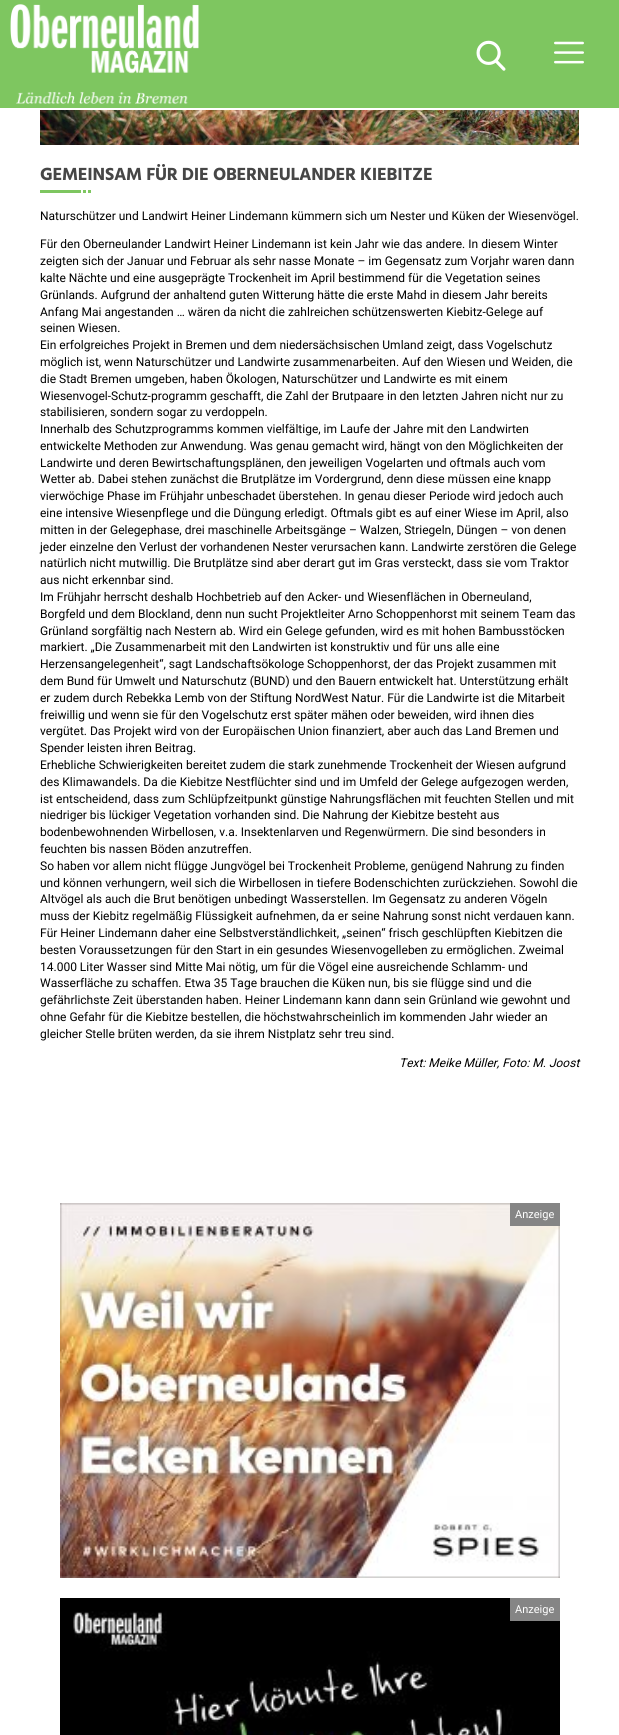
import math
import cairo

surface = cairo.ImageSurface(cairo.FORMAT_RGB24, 619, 1735)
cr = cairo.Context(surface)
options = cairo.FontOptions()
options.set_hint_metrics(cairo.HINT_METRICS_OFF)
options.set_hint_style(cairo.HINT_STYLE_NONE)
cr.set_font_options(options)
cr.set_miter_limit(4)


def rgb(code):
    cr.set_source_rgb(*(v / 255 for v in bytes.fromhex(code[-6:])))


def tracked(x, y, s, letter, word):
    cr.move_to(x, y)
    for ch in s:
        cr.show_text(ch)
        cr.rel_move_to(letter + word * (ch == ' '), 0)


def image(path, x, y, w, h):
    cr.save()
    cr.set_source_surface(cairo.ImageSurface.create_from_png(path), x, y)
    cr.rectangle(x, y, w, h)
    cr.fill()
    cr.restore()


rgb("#ffffff")
cr.paint()
rgb("#7ec660")
cr.rectangle(0, 0, 619, 108)
cr.fill()
image("img/1.png", 10, 4, 189, 100)
image("img/2.png", 476, 40, 30, 31)
image("img/3.png", 554, 41, 30, 23)
image("img/4.png", 40, 110, 539, 35)
for x, y, w, h, color in [
    (40, 190, 41, 3, "#7ec660"),
    (88, 190, 3, 3, "#7ec660"),
    (83, 190, 3, 3, "#7ec660"),
]:
    rgb(color)
    cr.rectangle(x, y, w, h)
    cr.fill()
image("img/5.png", 60, 1203, 500, 375)
rgb("#858585")
cr.rectangle(510, 1203, 50, 23)
cr.fill()
image("img/6.png", 60, 1598, 500, 137)
cr.rectangle(510, 1598, 50, 23)
cr.fill()
cr.select_font_face("Hind", cairo.FONT_SLANT_NORMAL, cairo.FONT_WEIGHT_BOLD)
cr.set_font_size(18)
rgb("#464646")
tracked(40, 180, "GEMEINSAM FÜR DIE OBERNEULANDER KIEBITZE", -0.25, 0)
cr.select_font_face("Roboto")
cr.set_font_size(12)
rgb("#000000")
for x, y, s in [
    (40, 220, "Naturschützer und Landwirt Heiner Lindemann kümmern sich um Nester und Küken der Wiesenvögel."),
    (40, 248, "Für den Oberneulander Landwirt Heiner Lindemann ist kein Jahr wie das andere. In diesem Winter"),
    (40, 265, "zeigten sich der Januar und Februar als sehr nasse Monate – im Gegensatz zum Vorjahr waren dann"),
    (40, 282, "kalte Nächte und eine ausgeprägte Trockenheit im April bestimmend für die Vegetation seines"),
    (40, 299, "Grünlands. Aufgrund der anhaltend guten Witterung hätte die erste Mahd in diesem Jahr bereits"),
    (40, 316, "Anfang Mai angestanden … wären da nicht die zahlreichen schützenswerten Kiebitz-Gelege auf"),
    (40, 332, "seinen Wiesen."),
    (40, 349, "Ein erfolgreiches Projekt in Bremen und dem niedersächsischen Umland zeigt, dass Vogelschutz"),
    (40, 366, "möglich ist, wenn Naturschützer und Landwirte zusammenarbeiten. Auf den Wiesen und Weiden, die"),
    (40, 383, "die Stadt Bremen umgeben, haben Ökologen, Naturschützer und Landwirte es mit einem"),
    (40, 400, "Wiesenvogel-Schutz-programm geschafft, die Zahl der Brutpaare in den letzten Jahren nicht nur zu"),
    (40, 416, "stabilisieren, sondern sogar zu verdoppeln."),
    (40, 433, "Innerhalb des Schutzprogramms kommen vielfältige, im Laufe der Jahre mit den Landwirten"),
    (40, 450, "entwickelte Methoden zur Anwendung. Was genau gemacht wird, hängt von den Möglichkeiten der"),
    (40, 467, "Landwirte und deren Bewirtschaftungsplänen, den jeweiligen Vogelarten und oftmals auch vom"),
    (40, 483, "Wetter ab. Dabei stehen zunächst die Brutplätze im Vordergrund, denn diese müssen eine knapp"),
    (40, 500, "vierwöchige Phase im Frühjahr unbeschadet überstehen. In genau dieser Periode wird jedoch auch"),
    (40, 517, "eine intensive Wiesenpflege und die Düngung erledigt. Oftmals gibt es auf einer Wiese im April, also"),
    (40, 534, "mitten in der Gelegephase, drei maschinelle Arbeitsgänge – Walzen, Striegeln, Düngen – von denen"),
    (40, 551, "jeder einzelne den Verlust der vorhandenen Nester verursachen kann. Landwirte zerstören die Gelege"),
    (40, 567, "natürlich nicht mutwillig. Die Brutplätze sind aber derart gut im Gras versteckt, dass sie vom Traktor"),
    (40, 584, "aus nicht erkennbar sind."),
    (40, 601, "Im Frühjahr herrscht deshalb Hochbetrieb auf den Acker- und Wiesenflächen in Oberneuland,"),
    (40, 618, "Borgfeld und dem Blockland, denn nun sucht Projektleiter Arno Schoppenhorst mit seinem Team das"),
    (40, 635, "Grünland sorgfältig nach Nestern ab. Wird ein Gelege gefunden, wird es mit hohen Bambusstöcken"),
    (40, 651, "markiert. „Die Zusammenarbeit mit den Landwirten ist konstruktiv und für uns alle eine"),
    (40, 668, "Herzensangelegenheit“, sagt Landschaftsökologe Schoppenhorst, der das Projekt zusammen mit"),
    (40, 685, "dem Bund für Umwelt und Naturschutz (BUND) und den Bauern entwickelt hat. Unterstützung erhält"),
    (40, 702, "er zudem durch Rebekka Lemb von der Stiftung NordWest Natur. Für die Landwirte ist die Mitarbeit"),
    (40, 719, "freiwillig und wenn sie für den Vogelschutz erst später mähen oder beweiden, wird ihnen dies"),
    (40, 735, "vergütet. Das Projekt wird von der Europäischen Union finanziert, aber auch das Land Bremen und"),
    (40, 752, "Spender leisten ihren Beitrag."),
    (40, 769, "Erhebliche Schwierigkeiten bereitet zudem die stark zunehmende Trockenheit der Wiesen aufgrund"),
    (40, 786, "des Klimawandels. Da die Kiebitze Nestflüchter sind und im Umfeld der Gelege aufgezogen werden,"),
    (40, 803, "ist entscheidend, dass zum Schlüpfzeitpunkt günstige Nahrungsflächen mit feuchten Stellen und mit"),
    (40, 819, "niedriger bis lückiger Vegetation vorhanden sind. Die Nahrung der Kiebitze besteht aus"),
    (40, 836, "bodenbewohnenden Wirbellosen, v.a. Insektenlarven und Regenwürmern. Die sind besonders in"),
    (40, 853, "feuchten bis nassen Böden anzutreffen."),
    (40, 870, "So haben vor allem nicht flügge Jungvögel bei Trockenheit Probleme, genügend Nahrung zu finden"),
    (40, 887, "und können verhungern, weil sich die Wirbellosen in tiefere Bodenschichten zurückziehen. Sowohl die"),
    (40, 903, "Altvögel als auch die Brut benötigen unbedingt Wasserstellen. Im Gegensatz zu anderen Vögeln"),
    (40, 920, "muss der Kiebitz regelmäßig Flüssigkeit aufnehmen, da er seine Nahrung sonst nicht verdauen kann."),
    (40, 937, "Für Heiner Lindemann daher eine Selbstverständlichkeit, „seinen“ frisch geschlüpften Kiebitzen die"),
    (40, 954, "besten Voraussetzungen für den Start in ein gesundes Wiesenvogelleben zu ermöglichen. Zweimal"),
    (40, 971, "14.000 Liter Wasser sind Mitte Mai nötig, um für die Vögel eine ausreichende Schlamm- und"),
    (40, 987, "Wasserfläche zu schaffen. Etwa 35 Tage brauchen die Küken nun, bis sie flügge sind und die"),
    (40, 1004, "gefährlichste Zeit überstanden haben. Heiner Lindemann kann dann sein Grünland wie gewohnt und"),
    (40, 1021, "ohne Gefahr für die Kiebitze bestellen, die höchstwahrscheinlich im kommenden Jahr wieder an"),
    (40, 1038, "gleicher Stelle brüten werden, da sie ihrem Nistplatz sehr treu sind."),
]:
    cr.move_to(x, y)
    cr.show_text(s)
cr.select_font_face("Roboto", cairo.FONT_SLANT_ITALIC)
cr.move_to(399, 1067)
cr.show_text("Text: Meike Müller, Foto: M. Joost")
cr.select_font_face("Roboto")
cr.set_font_size(11)
rgb("#ffffff")
cr.move_to(515, 1218)
cr.show_text("Anzeige")
cr.move_to(515, 1613)
cr.show_text("Anzeige")
surface.write_to_png("page.png")
